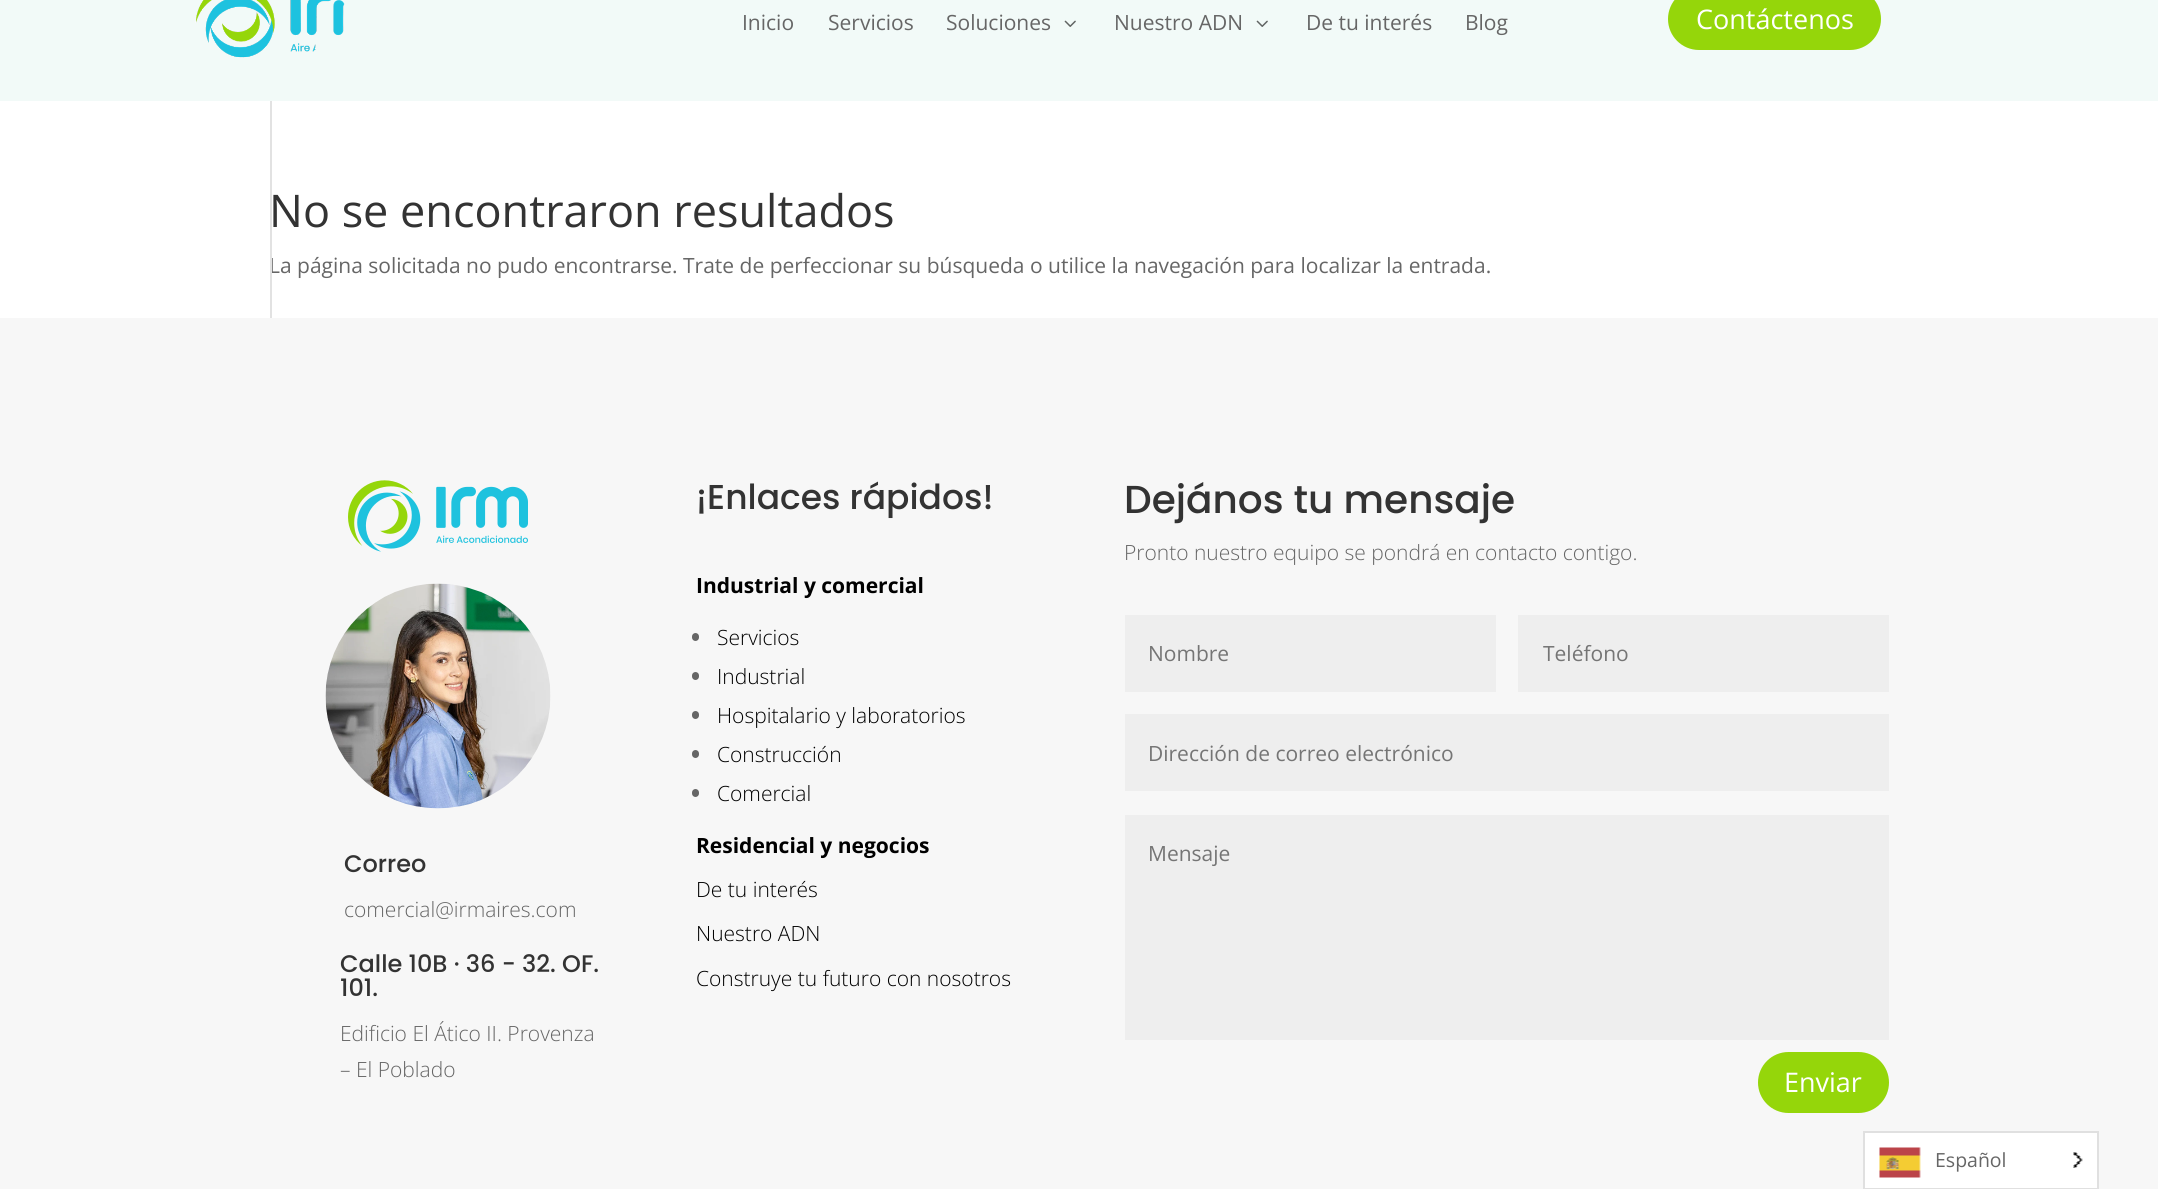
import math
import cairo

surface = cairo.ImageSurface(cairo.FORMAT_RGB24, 2158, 1189)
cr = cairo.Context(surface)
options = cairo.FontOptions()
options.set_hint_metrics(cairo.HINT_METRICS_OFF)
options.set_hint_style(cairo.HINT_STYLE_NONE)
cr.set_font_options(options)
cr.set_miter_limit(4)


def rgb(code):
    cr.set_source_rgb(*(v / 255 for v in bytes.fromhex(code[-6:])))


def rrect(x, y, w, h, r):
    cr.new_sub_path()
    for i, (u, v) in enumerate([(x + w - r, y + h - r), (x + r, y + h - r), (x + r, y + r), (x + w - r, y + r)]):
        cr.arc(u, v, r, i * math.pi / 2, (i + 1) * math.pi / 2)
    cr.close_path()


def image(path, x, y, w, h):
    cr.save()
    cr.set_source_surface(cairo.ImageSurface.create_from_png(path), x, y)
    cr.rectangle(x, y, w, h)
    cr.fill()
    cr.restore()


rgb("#ffffff")
cr.paint()
rgb("#f2faf8")
cr.rectangle(0, 0, 2158, 101)
cr.fill()
image("img/1.png", 195, 0, 150, 58)
image("img/2.png", 1064, 20, 12, 7)
image("img/2.png", 1256, 20, 12, 7)
rgb("#95d60a")
rrect(1668, -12, 213, 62, 31)
cr.fill()
rgb("#f7f7f7")
cr.rectangle(0, 318, 2158, 871)
cr.fill()
image("img/3.png", 348, 480, 180, 72)
image("img/4.png", 325, 583, 226, 226)
rgb("#666666")
rrect(692, 633, 7, 8, 3.5)
cr.fill()
rrect(692, 672, 7, 8, 3.5)
cr.fill()
rrect(692, 711, 7, 8, 3.5)
cr.fill()
rrect(692, 750, 7, 8, 3.5)
cr.fill()
rrect(692, 789, 7, 8, 3.5)
cr.fill()
for x, y, w, h, color in [
    (1125, 615, 371, 77, "#eeeeee"),
    (1518, 615, 371, 77, "#eeeeee"),
    (1125, 714, 764, 77, "#eeeeee"),
    (1125, 815, 764, 225, "#eeeeee"),
]:
    rgb(color)
    cr.rectangle(x, y, w, h)
    cr.fill()
rgb("#95d60a")
rrect(1758, 1052, 131, 61, 30.5)
cr.fill()
rgb("#ffffff")
cr.rectangle(1864, 1132, 234, 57)
cr.fill_preserve()
rgb("#e0e0e0")
cr.stroke()
image("img/5.png", 1879, 1147, 42, 31)
image("img/6.png", 2073, 1152, 10, 16)
cr.select_font_face("Open Sans")
cr.set_font_size(21)
rgb("#666666")
for x, y, s in [
    (742, 30, "Inicio"),
    (828, 30, "Servicios"),
    (946, 30, "Soluciones"),
    (1114, 30, "Nuestro ADN"),
    (1306, 30, "De tu interés"),
    (1465, 30, "Blog"),
]:
    cr.move_to(x, y)
    cr.show_text(s)
cr.set_font_size(27)
rgb("#ffffff")
cr.move_to(1696, 29)
cr.show_text("Contáctenos")
cr.set_font_size(45)
rgb("#333333")
cr.move_to(269, 227)
cr.show_text("No se encontraron resultados")
cr.set_font_size(21)
rgb("#666666")
cr.move_to(269, 273)
cr.show_text("La página solicitada no pudo encontrarse. Trate de perfeccionar su búsqueda o utilice la navegación para localizar la entrada.")
rgb("#e2e2e2")
cr.rectangle(270, 101, 2, 217)
cr.fill()
cr.select_font_face("Poppins Medium")
cr.set_font_size(24)
rgb("#333333")
cr.move_to(344, 872)
cr.show_text("Correo")
cr.select_font_face("Open Sans Light")
cr.set_font_size(21)
rgb("#666666")
cr.move_to(344, 917)
cr.show_text("comercial@irmaires.com")
cr.select_font_face("Poppins Medium")
cr.set_font_size(24)
rgb("#333333")
cr.move_to(340, 972)
cr.show_text("Calle 10B · 36 - 32. OF.")
cr.move_to(340, 996)
cr.show_text("101.")
cr.select_font_face("Open Sans Light")
cr.set_font_size(21)
rgb("#666666")
cr.move_to(340, 1041)
cr.show_text("Edificio El Ático II. Provenza")
cr.move_to(340, 1077)
cr.show_text("– El Poblado")
cr.select_font_face("Poppins Medium")
cr.set_font_size(34.5)
rgb("#333333")
cr.move_to(696, 509)
cr.show_text("¡Enlaces rápidos!")
cr.select_font_face("Open Sans", cairo.FONT_SLANT_NORMAL, cairo.FONT_WEIGHT_BOLD)
cr.set_font_size(21)
rgb("#000000")
cr.move_to(696, 593)
cr.show_text("Industrial y comercial")
cr.select_font_face("Open Sans Light")
for x, y, s in [
    (717, 645, "Servicios"),
    (717, 684, "Industrial"),
    (717, 723, "Hospitalario y laboratorios"),
    (717, 762, "Construcción"),
    (717, 801, "Comercial"),
]:
    cr.move_to(x, y)
    cr.show_text(s)
cr.select_font_face("Open Sans", cairo.FONT_SLANT_NORMAL, cairo.FONT_WEIGHT_BOLD)
cr.move_to(696, 853)
cr.show_text("Residencial y negocios")
cr.select_font_face("Open Sans Light")
for x, y, s in [
    (696, 897, "De tu interés"),
    (696, 941, "Nuestro ADN"),
    (696, 986, "Construye tu futuro con nosotros"),
]:
    cr.move_to(x, y)
    cr.show_text(s)
cr.select_font_face("Poppins Medium")
cr.set_font_size(39)
rgb("#333333")
cr.move_to(1124, 513)
cr.show_text("Dejános tu mensaje")
cr.select_font_face("Open Sans Light")
cr.set_font_size(21)
rgb("#666666")
cr.move_to(1124, 560)
cr.show_text("Pronto nuestro equipo se pondrá en contacto contigo.")
cr.select_font_face("Open Sans")
rgb("#757575")
for x, y, s in [
    (1148, 661, "Nombre"),
    (1543, 661, "Teléfono"),
    (1148, 761, "Dirección de correo electrónico"),
    (1148, 861, "Mensaje"),
]:
    cr.move_to(x, y)
    cr.show_text(s)
cr.set_font_size(27)
rgb("#ffffff")
cr.move_to(1784, 1092)
cr.show_text("Enviar")
cr.set_font_size(19.5)
rgb("#666666")
cr.move_to(1935, 1167)
cr.show_text("Español")
surface.write_to_png("page.png")
